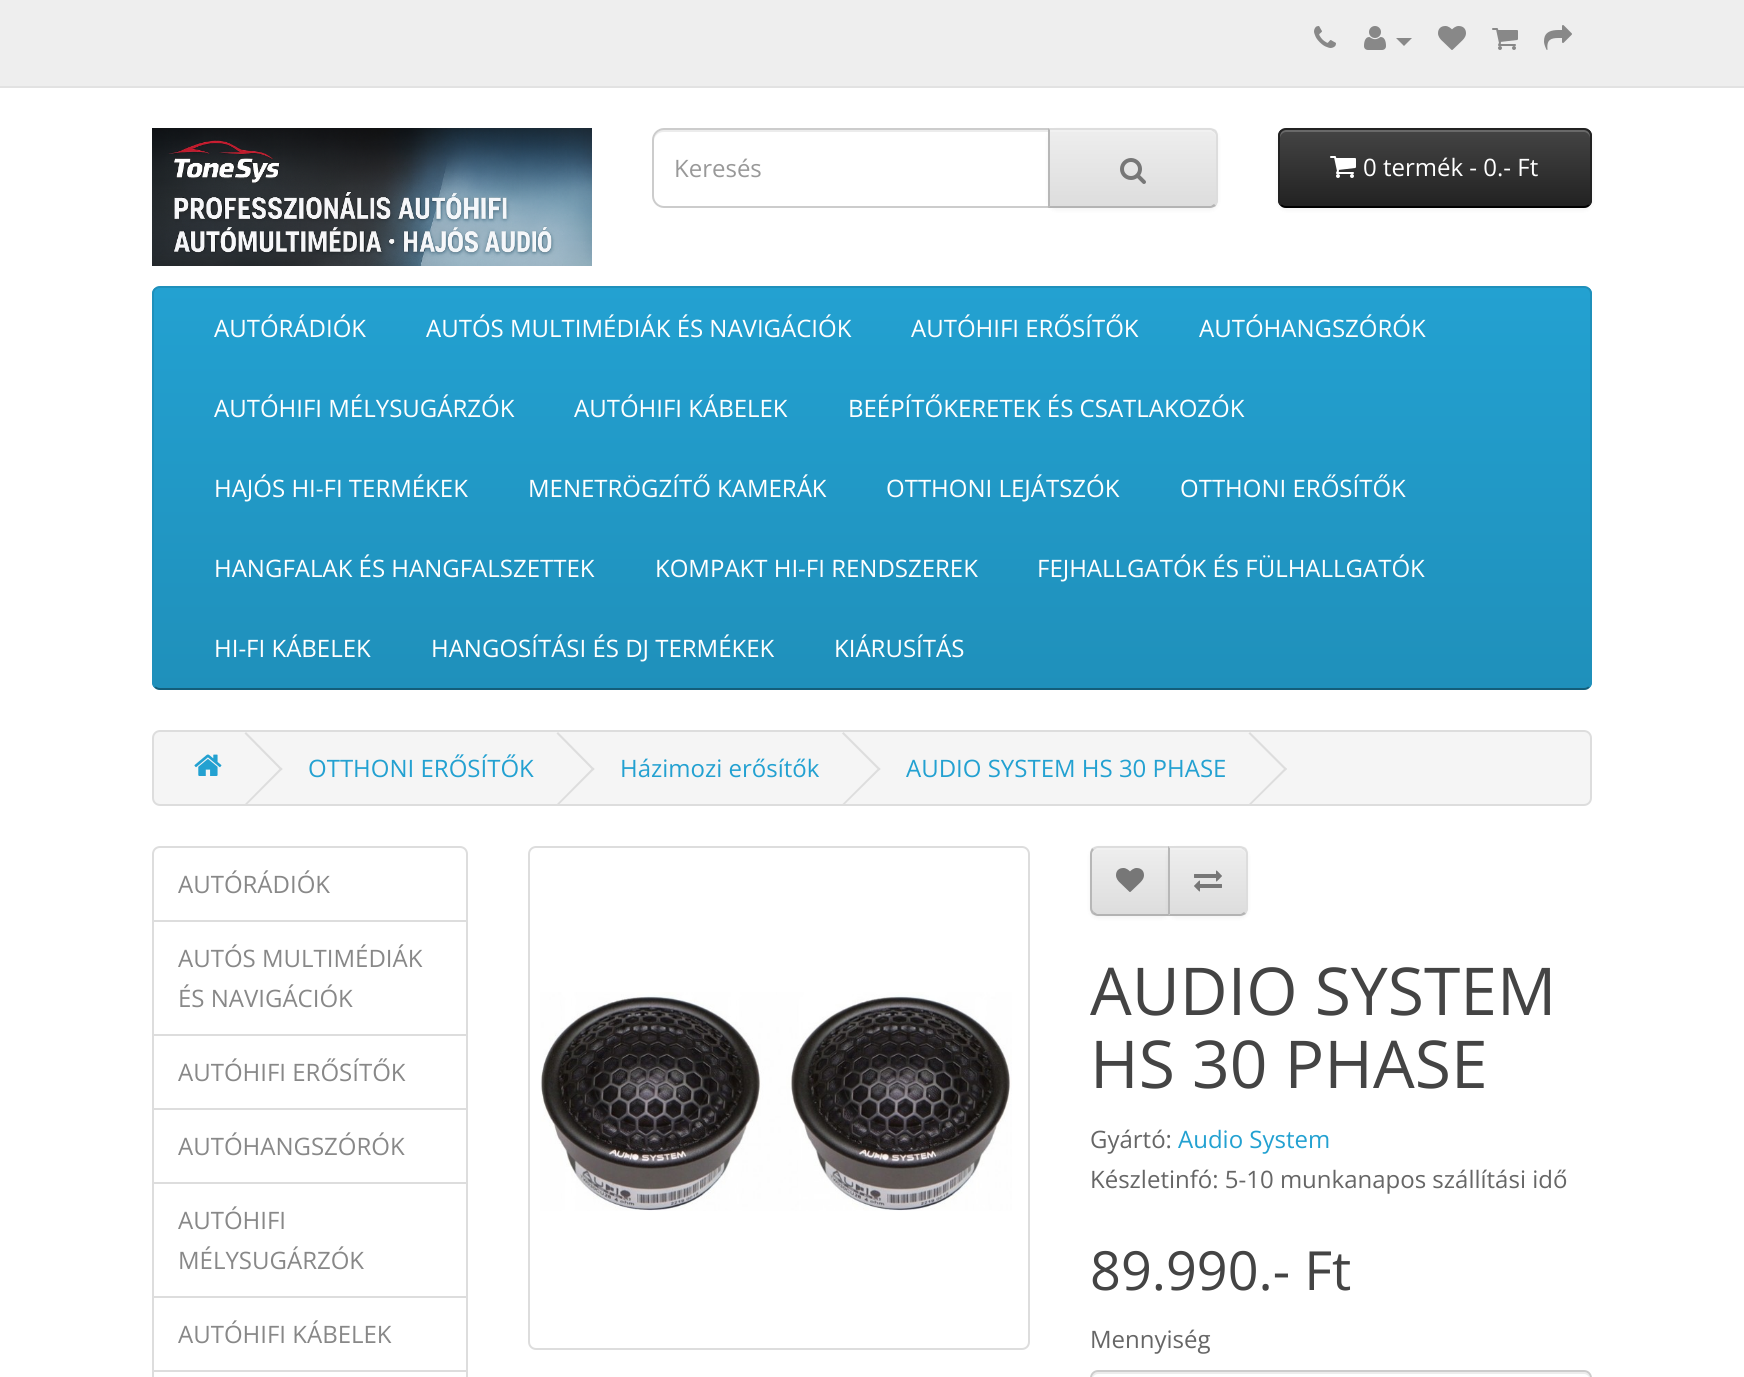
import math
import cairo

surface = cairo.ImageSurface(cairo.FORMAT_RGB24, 1744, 1377)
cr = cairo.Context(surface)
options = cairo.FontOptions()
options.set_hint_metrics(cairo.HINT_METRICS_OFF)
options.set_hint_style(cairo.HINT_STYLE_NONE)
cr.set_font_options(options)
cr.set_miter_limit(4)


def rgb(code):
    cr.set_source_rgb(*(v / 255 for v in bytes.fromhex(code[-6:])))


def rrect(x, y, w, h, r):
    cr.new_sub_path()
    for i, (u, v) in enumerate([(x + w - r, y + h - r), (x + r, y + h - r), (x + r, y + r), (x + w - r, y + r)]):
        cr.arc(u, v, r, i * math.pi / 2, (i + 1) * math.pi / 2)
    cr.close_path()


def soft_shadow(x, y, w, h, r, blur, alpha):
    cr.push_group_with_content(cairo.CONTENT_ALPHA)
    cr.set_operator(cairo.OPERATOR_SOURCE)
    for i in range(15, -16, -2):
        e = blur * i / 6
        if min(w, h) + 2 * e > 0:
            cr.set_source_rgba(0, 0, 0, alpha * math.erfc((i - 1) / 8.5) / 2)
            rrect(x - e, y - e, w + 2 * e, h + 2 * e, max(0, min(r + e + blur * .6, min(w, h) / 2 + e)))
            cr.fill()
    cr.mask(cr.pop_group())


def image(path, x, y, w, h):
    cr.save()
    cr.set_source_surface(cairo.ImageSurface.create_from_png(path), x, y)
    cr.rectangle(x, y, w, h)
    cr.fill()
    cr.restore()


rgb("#ffffff")
cr.paint()
rgb("#eeeeee")
cr.rectangle(0, 0, 1744, 86)
cr.fill()
rgb("#e2e2e2")
cr.rectangle(0, 86, 1744, 2)
cr.fill()
image("img/1.png", 1314, 26, 22, 22)
image("img/2.png", 1364, 26, 22, 24)
rgb("#888888")
cr.new_path()
cr.move_to(1396, 38)
cr.line_to(1412, 38)
cr.line_to(1404, 46)
cr.close_path()
cr.fill()
image("img/3.png", 1438, 26, 28, 24)
image("img/4.png", 1492, 28, 26, 22)
image("img/5.png", 1544, 25, 28, 25)
image("img/6.png", 152, 128, 440, 138)
rgb("#ececec")
cr.new_path()
cr.move_to(664, 132)
cr.line_to(1048, 132)
cr.line_to(1048, 130)
cr.line_to(662, 130)
cr.curve_to(656, 131, 654, 137, 654, 142)
cr.curve_to(654, 136, 658, 132, 664, 132)
cr.close_path()
cr.fill()
cr.new_path()
cr.move_to(664, 129)
cr.line_to(1049, 129)
cr.line_to(1049, 207)
cr.line_to(664, 207)
cr.curve_to(658, 207, 653, 202, 653, 196)
cr.line_to(653, 140)
cr.curve_to(653, 134, 658, 129, 664, 129)
cr.close_path()
rgb("#cccccc")
cr.stroke()
rgb("#000000")
soft_shadow(1048, 130, 170, 80, 8, 2, 0.05)
cr.save()
cr.new_path()
cr.move_to(1048, 128)
cr.line_to(1210, 128)
cr.curve_to(1214.5, 128, 1218, 131.5, 1218, 136)
cr.line_to(1218, 200)
cr.curve_to(1218, 204.5, 1214.5, 208, 1210, 208)
cr.line_to(1048, 208)
cr.close_path()
cr.clip()
gradient = cairo.LinearGradient(1133, 130, 1133, 206)
gradient.add_color_stop_rgba(0, 0.933, 0.933, 0.933, 1)
gradient.add_color_stop_rgba(1, 0.867, 0.867, 0.867, 1)
cr.set_source(gradient)
cr.rectangle(1050, 130, 168, 76)
cr.fill()
cr.restore()
rgb("#f1f1f1")
cr.new_path()
cr.move_to(1050, 132)
cr.line_to(1210, 132)
cr.curve_to(1213, 132, 1216, 135, 1216, 138)
cr.line_to(1216, 136)
cr.curve_to(1216, 133, 1213, 130, 1210, 130)
cr.line_to(1050, 130)
cr.close_path()
cr.fill()
rgb("#dddddd")
cr.new_path()
cr.move_to(1048, 128)
cr.line_to(1050, 130)
cr.line_to(1211, 130)
cr.line_to(1214, 132)
cr.line_to(1216, 130)
cr.curve_to(1214, 129, 1212, 128, 1210, 128)
cr.close_path()
cr.fill()
cr.new_path()
cr.move_to(1218, 200)
cr.line_to(1218, 136)
cr.curve_to(1218, 134, 1217, 132, 1216, 130)
cr.line_to(1214, 132)
cr.curve_to(1215, 133, 1216, 134, 1216, 136)
cr.line_to(1216, 200)
cr.curve_to(1216, 202, 1215, 203, 1214, 204)
cr.line_to(1216, 206)
cr.curve_to(1217, 204, 1218, 202, 1218, 200)
cr.close_path()
cr.fill()
rgb("#b3b3b3")
cr.new_path()
cr.move_to(1210, 208)
cr.curve_to(1212, 208, 1214, 207, 1216, 206)
cr.line_to(1214, 204)
cr.line_to(1211, 206)
cr.line_to(1050, 206)
cr.line_to(1048, 208)
cr.close_path()
cr.fill()
rgb("#b7b7b7")
cr.new_path()
cr.move_to(1048, 128)
cr.line_to(1048, 208)
cr.line_to(1050, 206)
cr.line_to(1050, 130)
cr.close_path()
cr.fill()
image("img/7.png", 1120, 158, 26, 26)
rgb("#000000")
soft_shadow(1278, 130, 314, 80, 8, 2, 0.05)
cr.save()
rrect(1278, 128, 314, 80, 8)
cr.clip()
gradient = cairo.LinearGradient(1435, 130, 1435, 206)
gradient.add_color_stop_rgba(0, 0.267, 0.267, 0.267, 1)
gradient.add_color_stop_rgba(1, 0.133, 0.133, 0.133, 1)
cr.set_source(gradient)
cr.rectangle(1278, 130, 314, 76)
cr.fill()
cr.restore()
rgb("#696969")
cr.new_path()
cr.move_to(1286, 132)
cr.line_to(1584, 132)
cr.curve_to(1587, 132, 1590, 135, 1590, 138)
cr.line_to(1590, 136)
cr.curve_to(1590, 133, 1587, 130, 1584, 130)
cr.line_to(1286, 130)
cr.curve_to(1283, 130, 1280, 133, 1280, 136)
cr.line_to(1280, 138)
cr.curve_to(1280, 135, 1283, 132, 1286, 132)
cr.close_path()
cr.fill()
cr.new_path()
cr.move_to(1589, 205)
cr.curve_to(1587.5, 206.5, 1586, 207, 1584, 207)
cr.line_to(1286, 207)
cr.curve_to(1284, 207, 1282.5, 206.5, 1281, 205)
rgb("#000000")
cr.stroke()
cr.new_path()
cr.move_to(1281, 205)
cr.curve_to(1279.5, 203.5, 1279, 202, 1279, 200)
cr.line_to(1279, 136)
cr.curve_to(1279, 134, 1279.5, 132.5, 1281, 131)
cr.curve_to(1282.5, 129.5, 1284, 129, 1286, 129)
cr.line_to(1584, 129)
cr.curve_to(1586, 129, 1587.5, 129.5, 1589, 131)
cr.curve_to(1590.5, 132.5, 1591, 134, 1591, 136)
cr.line_to(1591, 200)
cr.curve_to(1591, 202, 1590.5, 203.5, 1589, 205)
rgb("#222222")
cr.stroke()
image("img/8.png", 1330, 156, 26, 22)
cr.save()
rrect(152, 286, 1440, 404, 8)
cr.clip()
gradient = cairo.LinearGradient(872, 288, 872, 688)
gradient.add_color_stop_rgba(0, 0.137, 0.631, 0.82, 1)
gradient.add_color_stop_rgba(1, 0.122, 0.565, 0.733, 1)
cr.set_source(gradient)
cr.rectangle(152, 288, 1440, 400)
cr.fill()
cr.restore()
cr.new_path()
cr.move_to(1589, 687)
cr.curve_to(1587.5, 688.5, 1586, 689, 1584, 689)
cr.line_to(160, 689)
cr.curve_to(158, 689, 156.5, 688.5, 155, 687)
rgb("#145e7a")
cr.stroke()
cr.new_path()
cr.move_to(155, 687)
cr.curve_to(153.5, 685.5, 153, 684, 153, 682)
cr.line_to(153, 294)
cr.curve_to(153, 292, 153.5, 290.5, 155, 289)
cr.curve_to(156.5, 287.5, 158, 287, 160, 287)
cr.line_to(1584, 287)
cr.curve_to(1586, 287, 1587.5, 287.5, 1589, 289)
cr.curve_to(1590.5, 290.5, 1591, 292, 1591, 294)
cr.line_to(1591, 682)
cr.curve_to(1591, 684, 1590.5, 685.5, 1589, 687)
rgb("#1f90bb")
cr.stroke()
rgb("#f5f5f5")
rrect(153, 731, 1438, 74, 7)
cr.fill_preserve()
rgb("#dddddd")
cr.stroke()
image("img/9.png", 194, 754, 28, 22)
cr.new_path()
cr.move_to(244.5, 733.5)
cr.line_to(246, 732)
cr.line_to(282.5, 769)
cr.line_to(281, 770.5)
cr.close_path()
cr.fill()
cr.new_path()
cr.move_to(244.5, 804.5)
cr.line_to(281, 767.5)
cr.line_to(282.5, 769)
cr.line_to(246, 805.5)
cr.close_path()
cr.fill()
cr.new_path()
cr.move_to(556.5, 733.5)
cr.line_to(558, 732)
cr.line_to(594.5, 769)
cr.line_to(593, 770.5)
cr.close_path()
cr.fill()
cr.new_path()
cr.move_to(556.5, 804.5)
cr.line_to(593, 767.5)
cr.line_to(594.5, 769)
cr.line_to(558, 805.5)
cr.close_path()
cr.fill()
cr.new_path()
cr.move_to(842, 733.5)
cr.line_to(843.5, 732)
cr.line_to(880.5, 769)
cr.line_to(879, 770.5)
cr.close_path()
cr.fill()
cr.new_path()
cr.move_to(842, 804.5)
cr.line_to(879, 767.5)
cr.line_to(880.5, 769)
cr.line_to(843.5, 805.5)
cr.close_path()
cr.fill()
cr.new_path()
cr.move_to(1248.5, 733.5)
cr.line_to(1250, 732)
cr.line_to(1287, 769)
cr.line_to(1285.5, 770.5)
cr.close_path()
cr.fill()
cr.new_path()
cr.move_to(1248.5, 804.5)
cr.line_to(1285.5, 767.5)
cr.line_to(1287, 769)
cr.line_to(1250, 805.5)
cr.close_path()
cr.fill()
cr.new_path()
cr.move_to(160, 847)
cr.line_to(460, 847)
cr.curve_to(464, 847, 467, 850, 467, 854)
cr.line_to(467, 921)
cr.line_to(153, 921)
cr.line_to(153, 854)
cr.curve_to(153, 850, 156, 847, 160, 847)
cr.close_path()
cr.stroke()
cr.rectangle(153, 921, 314, 114)
cr.stroke()
cr.rectangle(153, 1035, 314, 74)
cr.stroke()
cr.rectangle(153, 1109, 314, 74)
cr.stroke()
cr.rectangle(153, 1183, 314, 114)
cr.stroke()
cr.rectangle(153, 1297, 314, 74)
cr.stroke()
cr.rectangle(153, 1371, 314, 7)
cr.stroke()
rrect(529, 847, 500, 502, 7)
cr.stroke()
image("img/10.png", 540, 992, 472, 219)
rgb("#000000")
soft_shadow(1090, 848, 80, 70, 8, 2, 0.05)
cr.save()
cr.new_path()
cr.move_to(1098, 846)
cr.line_to(1170, 846)
cr.line_to(1170, 916)
cr.line_to(1098, 916)
cr.curve_to(1093.5, 916, 1090, 912.5, 1090, 908)
cr.line_to(1090, 854)
cr.curve_to(1090, 849.5, 1093.5, 846, 1098, 846)
cr.close_path()
cr.clip()
gradient = cairo.LinearGradient(1130, 848, 1130, 914)
gradient.add_color_stop_rgba(0, 0.933, 0.933, 0.933, 1)
gradient.add_color_stop_rgba(1, 0.867, 0.867, 0.867, 1)
cr.set_source(gradient)
cr.rectangle(1090, 848, 78, 66)
cr.fill()
cr.restore()
rgb("#f1f1f1")
cr.new_path()
cr.move_to(1098, 850)
cr.line_to(1168, 850)
cr.line_to(1168, 848)
cr.line_to(1098, 848)
cr.curve_to(1095, 848, 1092, 851, 1092, 854)
cr.line_to(1092, 856)
cr.curve_to(1092, 853, 1095, 850, 1098, 850)
cr.close_path()
cr.fill()
rgb("#dddddd")
cr.new_path()
cr.move_to(1098, 846)
cr.curve_to(1096, 846, 1094, 847, 1092, 848)
cr.line_to(1094, 850)
cr.line_to(1097, 848)
cr.line_to(1168, 848)
cr.line_to(1170, 846)
cr.close_path()
cr.fill()
rgb("#b3b3b3")
cr.new_path()
cr.move_to(1170, 916)
cr.line_to(1168, 914)
cr.line_to(1097, 914)
cr.line_to(1094, 912)
cr.line_to(1092, 914)
cr.curve_to(1094, 915, 1096, 916, 1098, 916)
cr.close_path()
cr.fill()
rgb("#b7b7b7")
cr.new_path()
cr.move_to(1090, 854)
cr.line_to(1090, 908)
cr.curve_to(1090, 910, 1091, 912, 1092, 914)
cr.line_to(1094, 912)
cr.curve_to(1093, 911, 1092, 910, 1092, 908)
cr.line_to(1092, 854)
cr.curve_to(1092, 852, 1093, 851, 1094, 850)
cr.line_to(1092, 848)
cr.curve_to(1091, 850, 1090, 852, 1090, 854)
cr.close_path()
cr.fill()
image("img/11.png", 1116, 868, 28, 24)
rgb("#000000")
soft_shadow(1168, 848, 80, 70, 8, 2, 0.05)
cr.save()
cr.new_path()
cr.move_to(1168, 846)
cr.line_to(1240, 846)
cr.curve_to(1244.5, 846, 1248, 849.5, 1248, 854)
cr.line_to(1248, 908)
cr.curve_to(1248, 912.5, 1244.5, 916, 1240, 916)
cr.line_to(1168, 916)
cr.close_path()
cr.clip()
gradient = cairo.LinearGradient(1208, 848, 1208, 914)
gradient.add_color_stop_rgba(0, 0.933, 0.933, 0.933, 1)
gradient.add_color_stop_rgba(1, 0.867, 0.867, 0.867, 1)
cr.set_source(gradient)
cr.rectangle(1170, 848, 78, 66)
cr.fill()
cr.restore()
rgb("#f1f1f1")
cr.new_path()
cr.move_to(1170, 850)
cr.line_to(1240, 850)
cr.curve_to(1243, 850, 1246, 853, 1246, 856)
cr.line_to(1246, 854)
cr.curve_to(1246, 851, 1243, 848, 1240, 848)
cr.line_to(1170, 848)
cr.close_path()
cr.fill()
rgb("#dddddd")
cr.new_path()
cr.move_to(1168, 846)
cr.line_to(1170, 848)
cr.line_to(1241, 848)
cr.line_to(1244, 850)
cr.line_to(1246, 848)
cr.curve_to(1244, 847, 1242, 846, 1240, 846)
cr.close_path()
cr.fill()
cr.new_path()
cr.move_to(1248, 908)
cr.line_to(1248, 854)
cr.curve_to(1248, 852, 1247, 850, 1246, 848)
cr.line_to(1244, 850)
cr.curve_to(1245, 851, 1246, 852, 1246, 854)
cr.line_to(1246, 908)
cr.curve_to(1246, 910, 1245, 911, 1244, 912)
cr.line_to(1246, 914)
cr.curve_to(1247, 912, 1248, 910, 1248, 908)
cr.close_path()
cr.fill()
rgb("#b3b3b3")
cr.new_path()
cr.move_to(1240, 916)
cr.curve_to(1242, 916, 1244, 915, 1246, 914)
cr.line_to(1244, 912)
cr.line_to(1241, 914)
cr.line_to(1170, 914)
cr.line_to(1168, 916)
cr.close_path()
cr.fill()
rgb("#b7b7b7")
cr.new_path()
cr.move_to(1168, 846)
cr.line_to(1168, 916)
cr.line_to(1170, 914)
cr.line_to(1170, 848)
cr.close_path()
cr.fill()
image("img/12.png", 1194, 870, 28, 22)
rgb("#ececec")
cr.new_path()
cr.move_to(1098, 1374)
cr.line_to(1584, 1374)
cr.curve_to(1587, 1374, 1590, 1377, 1590, 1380)
cr.curve_to(1590, 1376, 1589, 1372, 1584, 1372)
cr.line_to(1098, 1372)
cr.curve_to(1093, 1372, 1092, 1376, 1092, 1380)
cr.curve_to(1092, 1377, 1095, 1374, 1098, 1374)
cr.close_path()
cr.fill()
rrect(1091, 1371, 500, 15, 7)
rgb("#cccccc")
cr.stroke()
cr.select_font_face("Open Sans")
cr.set_font_size(24)
rgb("#999999")
cr.move_to(674, 177)
cr.show_text("Keresés")
rgb("#ffffff")
for x, y, s in [
    (1363, 176, "0 termék - 0.- Ft"),
    (214, 337, "AUTÓRÁDIÓK"),
    (426, 337, "AUTÓS MULTIMÉDIÁK ÉS NAVIGÁCIÓK"),
    (911, 337, "AUTÓHIFI ERŐSÍTŐK"),
    (1199, 337, "AUTÓHANGSZÓRÓK"),
    (214, 417, "AUTÓHIFI MÉLYSUGÁRZÓK"),
    (574, 417, "AUTÓHIFI KÁBELEK"),
    (848, 417, "BEÉPÍTŐKERETEK ÉS CSATLAKOZÓK"),
    (214, 497, "HAJÓS HI-FI TERMÉKEK"),
    (528, 497, "MENETRÖGZÍTŐ KAMERÁK"),
    (886, 497, "OTTHONI LEJÁTSZÓK"),
    (1180, 497, "OTTHONI ERŐSÍTŐK"),
    (214, 577, "HANGFALAK ÉS HANGFALSZETTEK"),
    (655, 577, "KOMPAKT HI-FI RENDSZEREK"),
    (1037, 577, "FEJHALLGATÓK ÉS FÜLHALLGATÓK"),
    (214, 657, "HI-FI KÁBELEK"),
    (431, 657, "HANGOSÍTÁSI ÉS DJ TERMÉKEK"),
    (834, 657, "KIÁRUSÍTÁS"),
]:
    cr.move_to(x, y)
    cr.show_text(s)
rgb("#23a1d1")
for x, y, s in [
    (308, 777, "OTTHONI ERŐSÍTŐK"),
    (620, 777, "Házimozi erősítők"),
    (906, 777, "AUDIO SYSTEM HS 30 PHASE"),
]:
    cr.move_to(x, y)
    cr.show_text(s)
rgb("#888888")
for x, y, s in [
    (178, 893, "AUTÓRÁDIÓK"),
    (178, 967, "AUTÓS MULTIMÉDIÁK"),
    (178, 1007, "ÉS NAVIGÁCIÓK"),
    (178, 1081, "AUTÓHIFI ERŐSÍTŐK"),
    (178, 1155, "AUTÓHANGSZÓRÓK"),
    (178, 1229, "AUTÓHIFI"),
    (178, 1269, "MÉLYSUGÁRZÓK"),
    (178, 1343, "AUTÓHIFI KÁBELEK"),
]:
    cr.move_to(x, y)
    cr.show_text(s)
cr.set_font_size(66)
rgb("#444444")
cr.move_to(1090, 1015)
cr.show_text("AUDIO SYSTEM")
cr.move_to(1090, 1088)
cr.show_text("HS 30 PHASE")
cr.set_font_size(24)
rgb("#666666")
cr.move_to(1090, 1148)
cr.show_text("Gyártó:")
rgb("#23a1d1")
cr.move_to(1178, 1148)
cr.show_text("Audio System")
rgb("#666666")
cr.move_to(1090, 1188)
cr.show_text("Készletinfó: 5-10 munkanapos szállítási idő")
cr.set_font_size(54)
rgb("#444444")
cr.move_to(1090, 1290)
cr.show_text("89.990.- Ft")
cr.set_font_size(24)
rgb("#666666")
cr.move_to(1090, 1348)
cr.show_text("Mennyiség")
surface.write_to_png("page.png")
